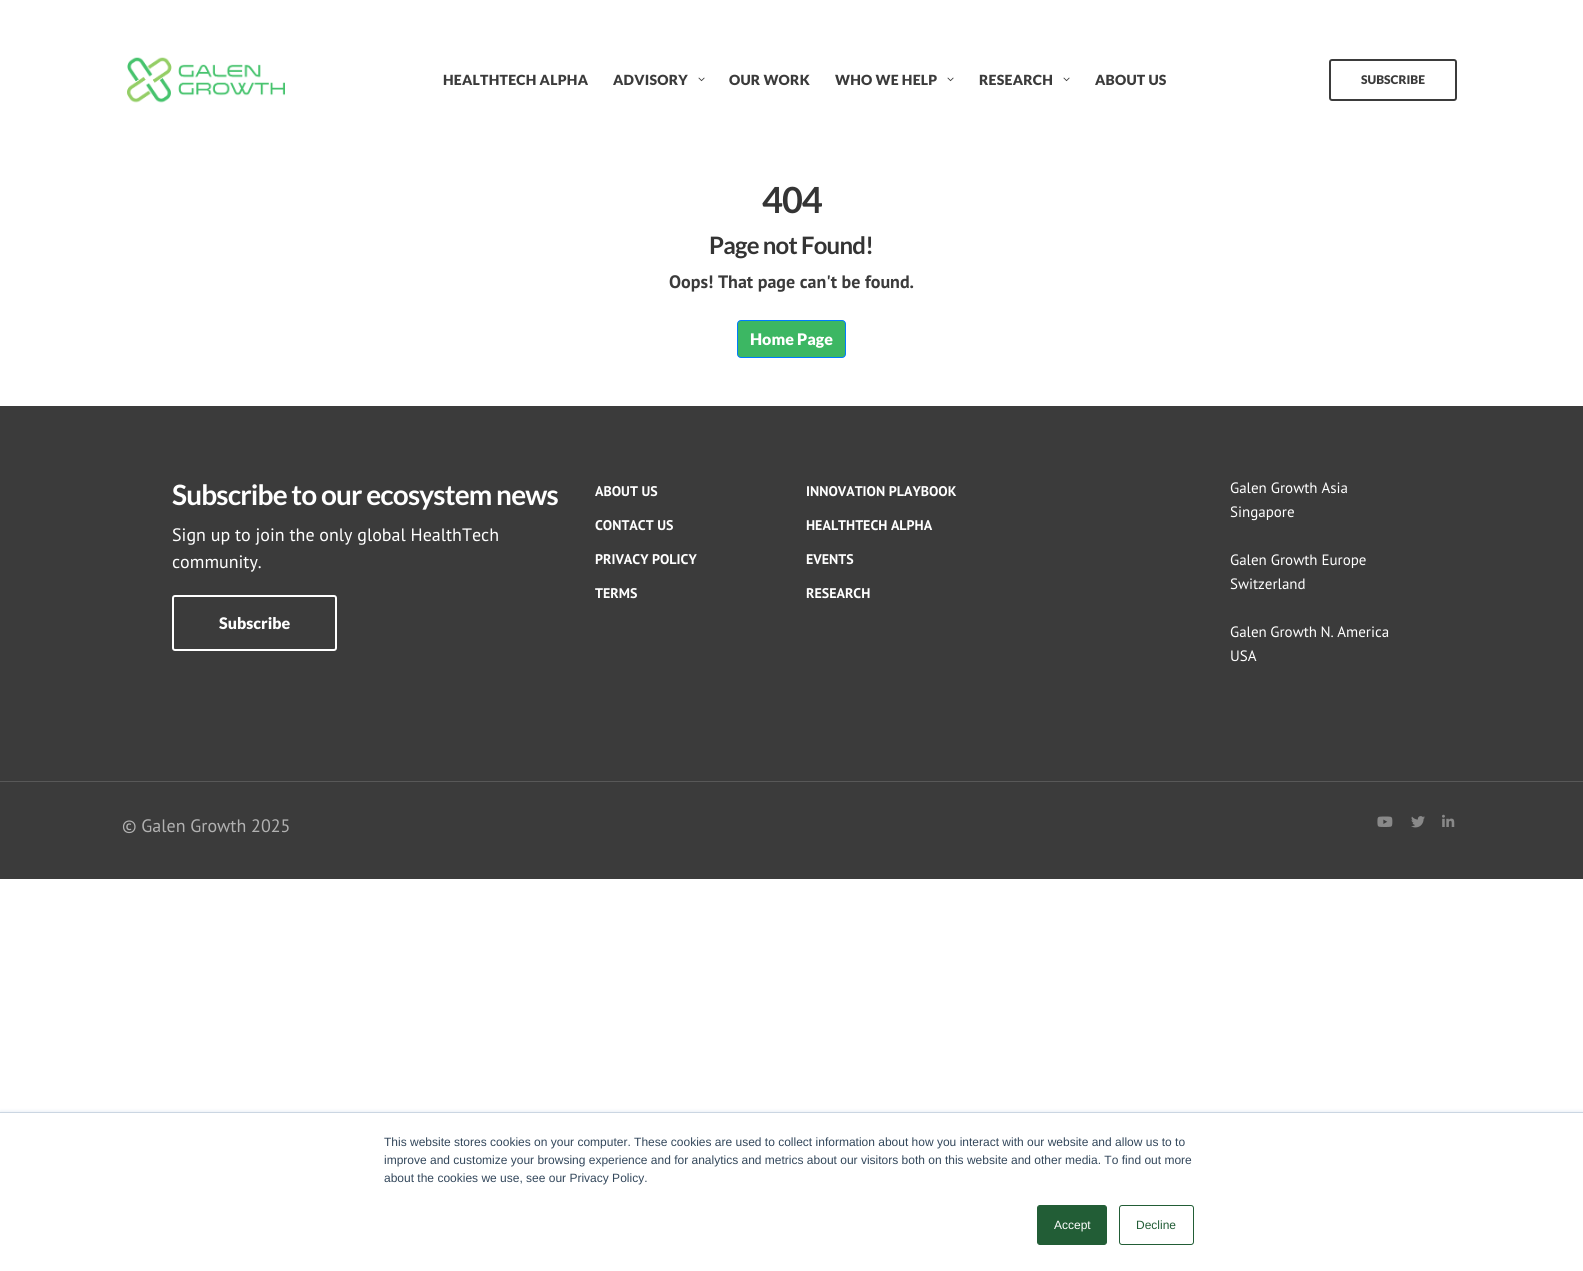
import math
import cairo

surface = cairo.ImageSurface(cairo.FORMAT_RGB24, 1583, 1271)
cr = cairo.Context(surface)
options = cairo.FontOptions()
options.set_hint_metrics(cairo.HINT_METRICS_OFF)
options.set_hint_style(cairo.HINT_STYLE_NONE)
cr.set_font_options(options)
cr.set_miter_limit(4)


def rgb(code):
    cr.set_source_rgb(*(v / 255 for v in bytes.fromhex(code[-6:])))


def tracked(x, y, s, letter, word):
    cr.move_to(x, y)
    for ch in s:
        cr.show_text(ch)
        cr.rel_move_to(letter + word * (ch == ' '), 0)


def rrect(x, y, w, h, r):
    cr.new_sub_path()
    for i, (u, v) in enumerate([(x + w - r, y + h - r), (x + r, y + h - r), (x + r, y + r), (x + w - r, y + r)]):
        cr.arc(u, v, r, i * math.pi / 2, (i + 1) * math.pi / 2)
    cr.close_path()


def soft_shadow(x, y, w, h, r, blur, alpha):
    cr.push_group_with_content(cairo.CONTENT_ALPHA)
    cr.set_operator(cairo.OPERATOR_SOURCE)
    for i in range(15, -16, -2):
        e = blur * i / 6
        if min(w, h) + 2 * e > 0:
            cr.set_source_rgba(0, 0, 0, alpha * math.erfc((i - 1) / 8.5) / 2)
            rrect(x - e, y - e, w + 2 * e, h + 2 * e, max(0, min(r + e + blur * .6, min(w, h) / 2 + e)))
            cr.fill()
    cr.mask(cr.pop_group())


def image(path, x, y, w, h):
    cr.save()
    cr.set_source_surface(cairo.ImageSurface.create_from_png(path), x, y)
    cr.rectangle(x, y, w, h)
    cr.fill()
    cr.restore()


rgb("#ffffff")
cr.paint()
image("img/1.png", 127, 57, 158, 46)
image("img/2.png", 698, 77, 7, 5)
image("img/2.png", 947, 77, 7, 5)
image("img/2.png", 1063, 77, 7, 5)
rrect(1330, 60, 126, 40, 2)
rgb("#3b3b3b")
cr.stroke()
rgb("#3cb763")
rrect(737.5, 320.5, 108, 37, 3.5)
cr.fill_preserve()
rgb("#007bff")
cr.set_line_width(1)
cr.stroke()
rgb("#3b3b3b")
cr.rectangle(0, 406, 1583, 375)
cr.fill()
rgb("#585858")
cr.rectangle(0, 781, 1583, 1)
cr.fill()
rrect(173, 596, 163, 54, 2)
rgb("#ffffff")
cr.set_line_width(2)
cr.stroke()
rgb("#3b3b3b")
cr.rectangle(0, 782, 1583, 97)
cr.fill()
image("img/3.png", 1377, 816, 16, 11)
image("img/4.png", 1411, 816, 14, 12)
image("img/5.png", 1442, 814, 13, 13)
cr.save()
cr.rectangle(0, 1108, 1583, 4)
cr.clip()
rgb("#eaf0f6")
soft_shadow(0, 1111, 1583, 159, 0, 1.5, 1)
cr.restore()
rgb("#cbd6e2")
cr.rectangle(0, 1112, 1583, 1)
cr.fill()
rgb("#225d36")
rrect(1037.5, 1205.5, 69, 39, 2.5)
cr.fill_preserve()
cr.set_line_width(1)
cr.stroke()
rrect(1119.5, 1205.5, 74, 39, 2.5)
cr.stroke()
cr.select_font_face("Lato Black")
cr.set_font_size(14)
rgb("#3b3b3b")
for x, y, s in [
    (443, 85, "HEALTHTECH ALPHA"),
    (613, 85, "ADVISORY"),
    (729, 85, "OUR WORK"),
    (835, 85, "WHO WE HELP"),
    (979, 85, "RESEARCH"),
    (1095, 85, "ABOUT US"),
]:
    tracked(x, y, s, 0.25, 0)
cr.set_font_size(12)
cr.move_to(1361, 84)
cr.show_text("SUBSCRIBE")
cr.select_font_face("Lato", cairo.FONT_SLANT_NORMAL, cairo.FONT_WEIGHT_BOLD)
cr.set_font_size(36)
rgb("#343434")
tracked(762, 213, "404", -1, 0)
cr.set_font_size(24)
tracked(709, 254, "Page not Found!", -0.75, 0)
cr.select_font_face("PT Sans", cairo.FONT_SLANT_NORMAL, cairo.FONT_WEIGHT_BOLD)
cr.set_font_size(18)
rgb("#3b3b3b")
cr.move_to(669, 288)
cr.show_text("Oops! That page can't be found.")
cr.select_font_face("Lato Black")
cr.set_font_size(16)
rgb("#ffffff")
cr.move_to(750, 345)
cr.show_text("Home Page")
cr.select_font_face("Lato", cairo.FONT_SLANT_NORMAL, cairo.FONT_WEIGHT_BOLD)
cr.set_font_size(28)
tracked(172, 505, "Subscribe to our ecosystem news", -0.85, 0)
cr.select_font_face("PT Sans")
cr.set_font_size(18)
cr.move_to(172, 541)
cr.show_text("Sign up to join the only global HealthTech")
cr.move_to(172, 568)
cr.show_text("community.")
cr.select_font_face("Lato Black")
cr.set_font_size(16)
cr.move_to(219, 629)
cr.show_text("Subscribe")
cr.select_font_face("PT Sans", cairo.FONT_SLANT_NORMAL, cairo.FONT_WEIGHT_BOLD)
cr.set_font_size(14)
for x, y, s in [
    (595, 496, "ABOUT US"),
    (595, 530, "CONTACT US"),
    (595, 564, "PRIVACY POLICY"),
    (595, 598, "TERMS"),
    (806, 496, "INNOVATION PLAYBOOK"),
    (806, 530, "HEALTHTECH ALPHA"),
    (806, 564, "EVENTS"),
    (806, 598, "RESEARCH"),
]:
    cr.move_to(x, y)
    cr.show_text(s)
cr.select_font_face("PT Sans")
cr.set_font_size(15)
for x, y, s in [
    (1230, 493, "Galen Growth Asia"),
    (1230, 517, "Singapore"),
    (1230, 565, "Galen Growth Europe"),
    (1230, 589, "Switzerland"),
]:
    cr.move_to(x, y)
    cr.show_text(s)
tracked(1230, 637, "Galen Growth N. America", 0, -0.5)
cr.move_to(1230, 661)
cr.show_text("USA")
cr.set_font_size(18)
rgb("#b1b1b1")
cr.move_to(122, 832)
cr.show_text("© Galen Growth 2025")
cr.select_font_face("Liberation Sans")
cr.set_font_size(12)
rgb("#33475b")
for x, y, s in [
    (384, 1146, "This website stores cookies on your computer. These cookies are used to collect information about how you interact with our website and allow us to to"),
    (384, 1164, "improve and customize your browsing experience and for analytics and metrics about our visitors both on this website and other media. To find out more"),
    (384, 1182, "about the cookies we use, see our Privacy Policy."),
]:
    cr.move_to(x, y)
    cr.show_text(s)
rgb("#ffffff")
cr.move_to(1054, 1229)
cr.show_text("Accept")
rgb("#225d36")
cr.move_to(1136, 1229)
cr.show_text("Decline")
surface.write_to_png("page.png")
